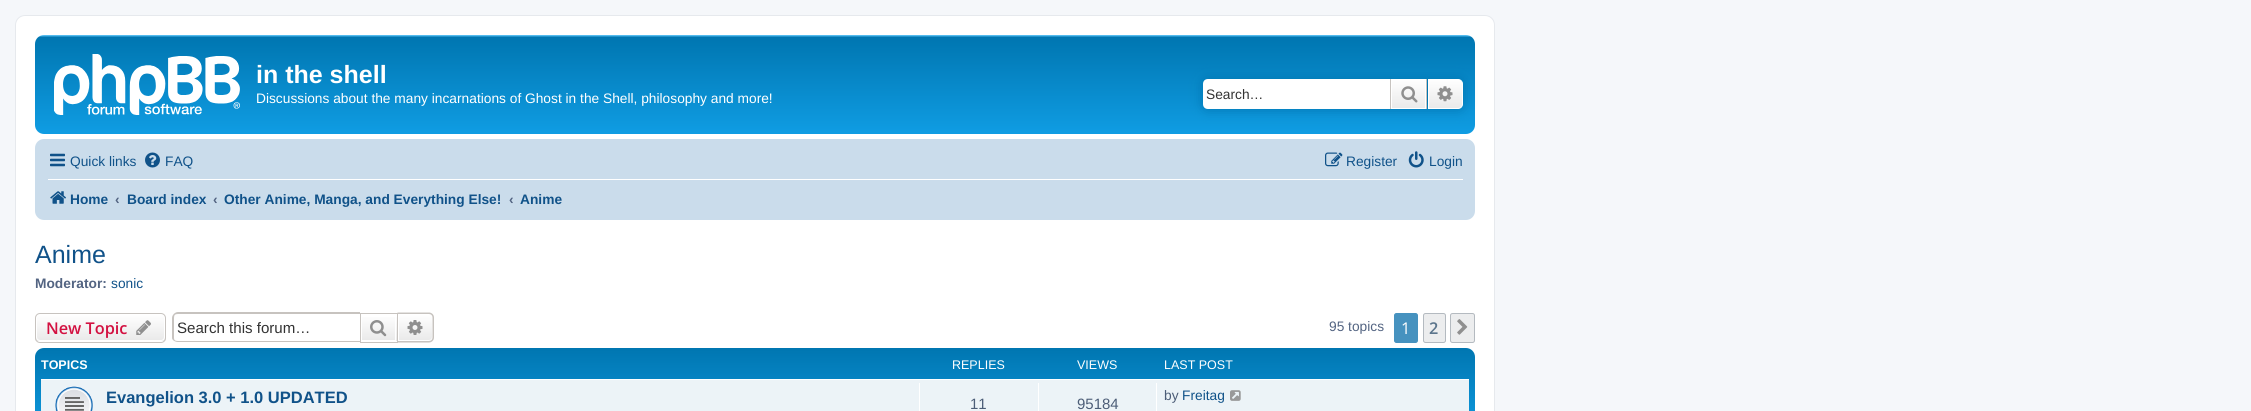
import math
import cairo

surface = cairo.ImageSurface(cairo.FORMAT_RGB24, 2251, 411)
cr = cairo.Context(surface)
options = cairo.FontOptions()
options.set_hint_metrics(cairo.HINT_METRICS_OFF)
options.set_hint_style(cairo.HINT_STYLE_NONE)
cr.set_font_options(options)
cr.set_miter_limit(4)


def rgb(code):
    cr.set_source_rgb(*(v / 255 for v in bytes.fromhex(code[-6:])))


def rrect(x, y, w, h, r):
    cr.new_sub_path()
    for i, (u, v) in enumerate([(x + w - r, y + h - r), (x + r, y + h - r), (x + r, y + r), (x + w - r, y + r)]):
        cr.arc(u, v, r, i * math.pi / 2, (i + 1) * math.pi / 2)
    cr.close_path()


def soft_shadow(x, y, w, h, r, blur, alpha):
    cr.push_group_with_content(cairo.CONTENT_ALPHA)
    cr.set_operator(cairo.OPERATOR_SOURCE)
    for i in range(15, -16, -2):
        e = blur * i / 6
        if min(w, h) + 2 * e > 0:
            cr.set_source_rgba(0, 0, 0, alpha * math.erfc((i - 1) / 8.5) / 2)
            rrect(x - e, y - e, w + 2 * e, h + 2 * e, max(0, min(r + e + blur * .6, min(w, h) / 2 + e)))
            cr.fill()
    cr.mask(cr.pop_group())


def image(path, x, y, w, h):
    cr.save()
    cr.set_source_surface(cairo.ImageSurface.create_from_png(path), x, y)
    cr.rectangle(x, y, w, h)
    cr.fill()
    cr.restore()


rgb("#f5f7fa")
cr.paint()
rgb("#ffffff")
rrect(15.5, 15.5, 1479, 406, 9.5)
cr.fill_preserve()
rgb("#e6e9ed")
cr.set_line_width(1)
cr.stroke()
gradient = cairo.LinearGradient(755, 35, 755, 150)
gradient.add_color_stop_rgba(0, 0.416, 0.808, 1, 1)
gradient.add_color_stop_rgba(0.02, 0, 0.463, 0.694, 1)
gradient.add_color_stop_rgba(1, 0.071, 0.639, 0.922, 1)
cr.set_source(gradient)
rrect(35, 35, 1440, 99, 9)
cr.fill()
image("img/1.png", 54, 54, 186, 61)
rgb("#0075b0")
soft_shadow(1203, 79, 260, 30, 5, 6, 1)
rgb("#ffffff")
cr.new_path()
cr.move_to(1208, 79)
cr.line_to(1390, 79)
cr.line_to(1390, 109)
cr.line_to(1208, 109)
cr.curve_to(1205, 109, 1203, 107, 1203, 104)
cr.line_to(1203, 84)
cr.curve_to(1203, 81, 1205, 79, 1208, 79)
cr.close_path()
cr.fill()
gradient = cairo.LinearGradient(1409, 79, 1409, 109)
gradient.add_color_stop_rgba(0, 1, 1, 1, 1)
gradient.add_color_stop_rgba(1, 0.914, 0.914, 0.914, 1)
cr.set_source(gradient)
cr.rectangle(1392, 80, 33, 28)
cr.fill()
cr.rectangle(1391.5, 79.5, 34, 29)
rgb("#ffffff")
cr.stroke()
rgb("#c7c3bf")
cr.rectangle(1426, 79, 1, 30)
cr.fill()
cr.rectangle(1390, 79, 1, 30)
cr.fill()
image("img/2.png", 1401, 86, 17, 17)
gradient = cairo.LinearGradient(1445, 79, 1445, 109)
gradient.add_color_stop_rgba(0, 1, 1, 1, 1)
gradient.add_color_stop_rgba(1, 0.914, 0.914, 0.914, 1)
cr.set_source(gradient)
cr.new_path()
cr.move_to(1428.5, 79.5)
cr.line_to(1458, 79.5)
cr.curve_to(1460.5, 79.5, 1462.5, 81.5, 1462.5, 84)
cr.line_to(1462.5, 104)
cr.curve_to(1462.5, 106.5, 1460.5, 108.5, 1458, 108.5)
cr.line_to(1428.5, 108.5)
cr.close_path()
cr.fill_preserve()
rgb("#ffffff")
cr.stroke()
image("img/3.png", 1437, 86, 16, 16)
rgb("#cadceb")
rrect(35, 139, 1440, 81, 9)
cr.fill()
image("img/4.png", 50, 153, 15, 14)
image("img/5.png", 145, 152, 15, 16)
image("img/6.png", 1325, 152, 18, 15)
image("img/7.png", 1408, 151, 16, 17)
rgb("#ffffff")
cr.rectangle(48, 179, 1415, 1)
cr.fill()
image("img/8.png", 50, 191, 16, 13)
cr.save()
rrect(35, 313, 131, 30, 5)
cr.clip()
gradient = cairo.LinearGradient(101, 314, 101, 341)
gradient.add_color_stop_rgba(0, 1, 1, 1, 1)
gradient.add_color_stop_rgba(1, 0.914, 0.914, 0.914, 1)
cr.set_source(gradient)
cr.rectangle(35, 314, 131, 27)
cr.fill()
cr.restore()
rrect(36.5, 314.5, 128, 26, 3.5)
cr.stroke()
rrect(35.5, 313.5, 130, 29, 4.5)
rgb("#c7c3bf")
cr.stroke()
image("img/9.png", 136, 320, 15, 15)
cr.set_fill_rule(cairo.FILL_RULE_EVEN_ODD)
cr.new_path()
cr.move_to(178, 312)
cr.line_to(360, 312)
cr.line_to(360, 342)
cr.line_to(178, 342)
cr.curve_to(175, 342, 172, 340, 172, 338)
cr.line_to(172, 318)
cr.curve_to(172, 315, 175, 312, 178, 312)
cr.close_path()
cr.move_to(178, 314)
cr.line_to(360, 314)
cr.line_to(360, 341)
cr.line_to(178, 341)
cr.curve_to(175, 341, 174, 340, 174, 338)
cr.line_to(174, 318)
cr.curve_to(174, 315, 175, 314, 178, 314)
cr.close_path()
cr.fill()
gradient = cairo.LinearGradient(379, 314, 379, 341)
gradient.add_color_stop_rgba(0, 1, 1, 1, 1)
gradient.add_color_stop_rgba(1, 0.914, 0.914, 0.914, 1)
cr.set_source(gradient)
cr.rectangle(362, 317, 35, 24)
cr.fill()
cr.rectangle(361.5, 314.5, 34, 26)
rgb("#ffffff")
cr.stroke()
cr.rectangle(360.5, 313.5, 37, 29)
rgb("#c7c3bf")
cr.stroke()
image("img/10.png", 370, 320, 17, 17)
gradient = cairo.LinearGradient(415, 314, 415, 341)
gradient.add_color_stop_rgba(0, 1, 1, 1, 1)
gradient.add_color_stop_rgba(1, 0.914, 0.914, 0.914, 1)
cr.set_source(gradient)
cr.new_path()
cr.move_to(398.5, 314.5)
cr.line_to(429, 314.5)
cr.curve_to(431, 314.5, 432.5, 316, 432.5, 318)
cr.line_to(432.5, 337)
cr.curve_to(432.5, 339, 431, 340.5, 429, 340.5)
cr.line_to(398.5, 340.5)
cr.close_path()
cr.fill_preserve()
rgb("#ffffff")
cr.stroke()
rgb("#c7c3bf")
cr.new_path()
cr.move_to(397.5, 312.5)
cr.line_to(429, 312.5)
cr.curve_to(431.5, 312.5, 434, 314.5, 434, 317.5)
cr.line_to(434, 337.5)
cr.curve_to(434, 340.5, 431.5, 342.5, 429, 342.5)
cr.line_to(397.5, 342.5)
cr.close_path()
cr.move_to(397.5, 314)
cr.line_to(429, 314)
cr.curve_to(431, 314, 432.5, 315.5, 432.5, 317.5)
cr.line_to(432.5, 337.5)
cr.curve_to(432.5, 339.5, 431, 341, 429, 341)
cr.line_to(397.5, 341)
cr.close_path()
cr.fill()
image("img/11.png", 407, 320, 16, 15)
rgb("#4692bf")
rrect(1394.5, 313.5, 23, 29, 2)
cr.fill_preserve()
cr.stroke()
rgb("#ecedee")
rrect(1423.5, 313.5, 22, 29, 2)
cr.fill_preserve()
rgb("#b4bac0")
cr.stroke()
rgb("#ecedee")
rrect(1450.5, 313.5, 24, 29, 2)
cr.fill_preserve()
rgb("#b4bac0")
cr.stroke()
image("img/12.png", 1457, 319, 11, 16)
gradient = cairo.LinearGradient(755, 348, 755, 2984)
gradient.add_color_stop_rgba(0, 0.416, 0.808, 1, 1)
gradient.add_color_stop_rgba(0, 0, 0.463, 0.694, 1)
gradient.add_color_stop_rgba(0.04, 0.071, 0.639, 0.922, 1)
gradient.add_color_stop_rgba(1, 0.071, 0.639, 0.922, 1)
cr.set_source(gradient)
rrect(35, 348, 1440, 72, 9)
cr.fill()
rgb("#ecf3f7")
cr.rectangle(41, 380, 1428, 31)
cr.fill()
rgb("#ffffff")
cr.rectangle(41, 379, 1428, 1)
cr.fill()
image("img/13.png", 55, 386, 38, 25)
for x, y, w, h, color in [
    (919, 383, 1, 28, "#ffffff"),
    (1038, 383, 1, 28, "#ffffff"),
    (1156, 383, 1, 28, "#ffffff"),
]:
    rgb(color)
    cr.rectangle(x, y, w, h)
    cr.fill()
image("img/14.png", 1230, 390, 11, 11)
cr.select_font_face("Liberation Sans", cairo.FONT_SLANT_NORMAL, cairo.FONT_WEIGHT_BOLD)
cr.set_font_size(25)
cr.move_to(256, 83)
cr.show_text("in the shell")
cr.select_font_face("Liberation Sans")
cr.set_font_size(13.75)
cr.move_to(256, 103)
cr.show_text("Discussions about the many incarnations of Ghost in the Shell, philosophy and more!")
rgb("#333333")
cr.move_to(1206, 99)
cr.show_text("Search…")
rgb("#105289")
for x, y, s in [
    (70, 166, "Quick links"),
    (165, 166, "FAQ"),
    (1346, 166, "Register"),
    (1429, 166, "Login"),
]:
    cr.move_to(x, y)
    cr.show_text(s)
cr.select_font_face("Liberation Sans", cairo.FONT_SLANT_NORMAL, cairo.FONT_WEIGHT_BOLD)
cr.move_to(70, 204)
cr.show_text("Home")
rgb("#536482")
cr.move_to(115, 204)
cr.show_text("‹")
rgb("#105289")
cr.move_to(127, 204)
cr.show_text("Board index")
rgb("#536482")
cr.move_to(213, 204)
cr.show_text("‹")
rgb("#105289")
cr.move_to(224, 204)
cr.show_text("Other Anime, Manga, and Everything Else!")
rgb("#536482")
cr.move_to(509, 204)
cr.show_text("‹")
rgb("#105289")
cr.move_to(520, 204)
cr.show_text("Anime")
cr.select_font_face("Liberation Sans")
cr.set_font_size(25)
cr.move_to(35, 263)
cr.show_text("Anime")
cr.select_font_face("Liberation Sans", cairo.FONT_SLANT_NORMAL, cairo.FONT_WEIGHT_BOLD)
cr.set_font_size(13.75)
rgb("#536482")
cr.move_to(35, 288)
cr.show_text("Moderator:")
cr.select_font_face("Liberation Sans")
rgb("#105289")
cr.move_to(111, 288)
cr.show_text("sonic")
cr.select_font_face("Open Sans SemiBold")
cr.set_font_size(16.25)
rgb("#d31141")
cr.move_to(46, 334)
cr.show_text("New Topic")
cr.select_font_face("Liberation Sans")
cr.set_font_size(15.1)
rgb("#333333")
cr.move_to(177, 333)
cr.show_text("Search this forum…")
cr.set_font_size(13.75)
rgb("#536482")
cr.move_to(1329, 331)
cr.show_text("95 topics")
cr.select_font_face("Open Sans")
cr.set_font_size(16.25)
rgb("#ffffff")
cr.move_to(1401, 334)
cr.show_text("1")
cr.select_font_face("Open Sans SemiBold")
rgb("#5c758c")
cr.move_to(1429, 334)
cr.show_text("2")
cr.select_font_face("Liberation Sans", cairo.FONT_SLANT_NORMAL, cairo.FONT_WEIGHT_BOLD)
cr.set_font_size(12.5)
rgb("#ffffff")
cr.move_to(41, 369)
cr.show_text("TOPICS")
cr.select_font_face("Liberation Sans")
for x, y, s in [
    (952, 369, "REPLIES"),
    (1077, 369, "VIEWS"),
    (1164, 369, "LAST POST"),
]:
    cr.move_to(x, y)
    cr.show_text(s)
cr.select_font_face("Liberation Sans", cairo.FONT_SLANT_NORMAL, cairo.FONT_WEIGHT_BOLD)
cr.set_font_size(16.5)
rgb("#105289")
cr.move_to(106, 403)
cr.show_text("Evangelion 3.0 + 1.0 UPDATED")
cr.select_font_face("Liberation Sans")
cr.set_font_size(15)
rgb("#4c5d77")
cr.move_to(970, 409)
cr.show_text("11")
cr.move_to(1077, 409)
cr.show_text("95184")
cr.set_font_size(13.75)
cr.move_to(1164, 400)
cr.show_text("by")
rgb("#105289")
cr.move_to(1182, 400)
cr.show_text("Freitag")
surface.write_to_png("page.png")
